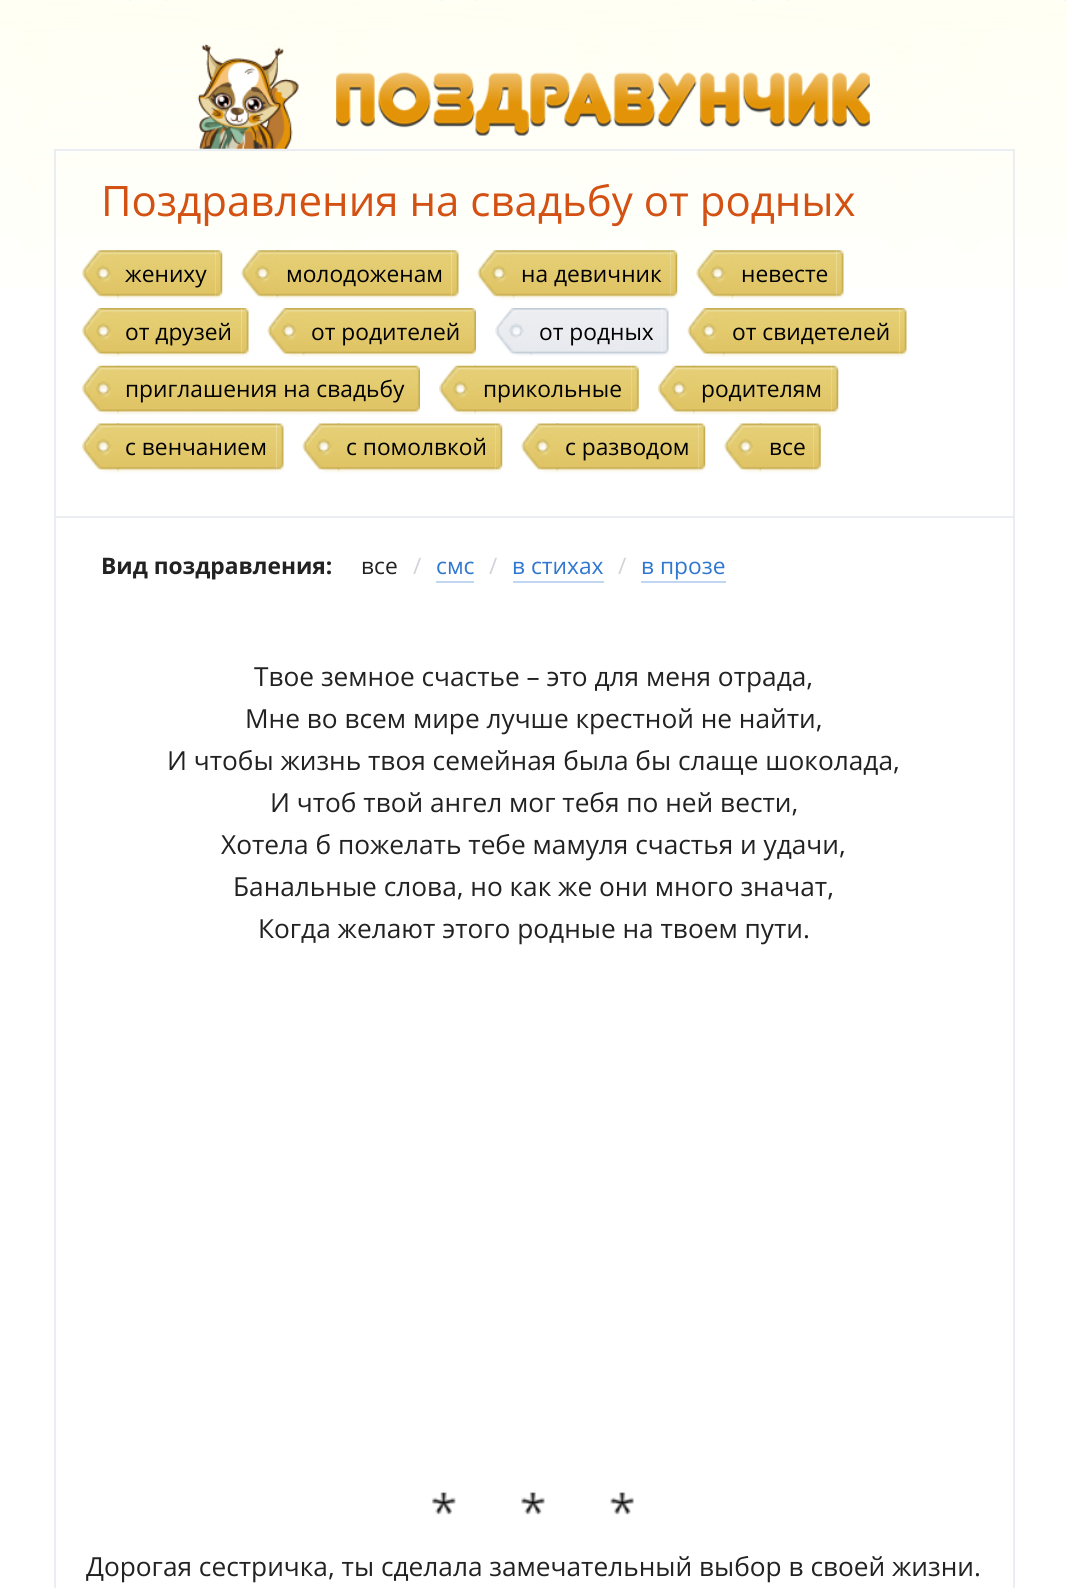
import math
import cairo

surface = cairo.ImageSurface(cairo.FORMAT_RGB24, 1067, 1588)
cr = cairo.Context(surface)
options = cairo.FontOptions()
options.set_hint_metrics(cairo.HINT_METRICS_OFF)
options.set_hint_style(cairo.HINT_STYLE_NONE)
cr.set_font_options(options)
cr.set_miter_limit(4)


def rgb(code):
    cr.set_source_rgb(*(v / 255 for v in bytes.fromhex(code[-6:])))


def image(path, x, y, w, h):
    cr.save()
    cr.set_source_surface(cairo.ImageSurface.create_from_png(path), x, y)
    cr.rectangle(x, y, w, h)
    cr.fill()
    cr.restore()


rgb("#ffffff")
cr.paint()
image("img/1.png", 0, 0, 1067, 287)
image("img/2.png", 197, 43, 673, 106)
cr.rectangle(55, 150, 959, 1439)
rgb("#eaedf1")
cr.stroke()
cr.rectangle(56, 516, 957, 2)
cr.fill()
image("img/3.png", 117, 250, 99, 50)
image("img/4.png", 82, 250, 37, 50)
image("img/5.png", 215, 250, 8, 49)
image("img/6.png", 276, 250, 176, 50)
image("img/7.png", 241, 250, 38, 50)
image("img/8.png", 451, 250, 8, 50)
image("img/9.png", 512, 250, 159, 50)
image("img/10.png", 477, 250, 38, 50)
image("img/11.png", 670, 250, 8, 49)
image("img/12.png", 731, 250, 106, 50)
image("img/13.png", 696, 250, 38, 50)
image("img/14.png", 836, 250, 8, 50)
image("img/15.png", 117, 308, 125, 49)
image("img/16.png", 82, 308, 37, 49)
image("img/17.png", 241, 308, 8, 49)
image("img/18.png", 302, 308, 167, 49)
image("img/19.png", 267, 308, 38, 49)
image("img/20.png", 469, 308, 7, 49)
image("img/21.png", 530, 308, 132, 48)
image("img/22.png", 495, 308, 37, 48)
image("img/23.png", 661, 308, 8, 48)
image("img/24.png", 722, 308, 178, 49)
image("img/19.png", 687, 308, 38, 49)
image("img/25.png", 899, 308, 8, 49)
image("img/26.png", 117, 365, 296, 50)
image("img/27.png", 82, 365, 37, 50)
image("img/28.png", 413, 365, 7, 50)
image("img/29.png", 474, 365, 158, 50)
image("img/30.png", 439, 365, 37, 50)
image("img/31.png", 631, 365, 8, 50)
image("img/32.png", 693, 365, 139, 50)
image("img/33.png", 658, 365, 37, 50)
image("img/34.png", 831, 365, 8, 50)
image("img/35.png", 117, 423, 160, 50)
image("img/36.png", 82, 423, 37, 50)
image("img/37.png", 276, 423, 8, 50)
image("img/38.png", 337, 423, 159, 50)
image("img/39.png", 302, 423, 38, 50)
image("img/40.png", 495, 423, 8, 50)
image("img/41.png", 556, 423, 143, 50)
image("img/42.png", 521, 423, 38, 50)
image("img/43.png", 698, 423, 8, 50)
image("img/44.png", 759, 423, 55, 50)
image("img/45.png", 724, 423, 38, 50)
image("img/46.png", 813, 423, 8, 50)
for x, y, w, h, color in [
    (436, 581, 38, 2, "#c0d6f1"),
    (513, 581, 91, 2, "#c0d6f1"),
    (641, 581, 85, 2, "#c0d6f1"),
]:
    rgb(color)
    cr.rectangle(x, y, w, h)
    cr.fill()
image("img/47.png", 431, 1492, 25, 23)
image("img/48.png", 521, 1492, 24, 23)
image("img/49.png", 610, 1492, 24, 23)
cr.select_font_face("Open Sans")
cr.set_font_size(42)
rgb("#d25113")
cr.move_to(101, 216)
cr.show_text("Поздравления на свадьбу от родных")
cr.set_font_size(22.75)
rgb("#000000")
for x, y, s in [
    (125, 282, "жениху"),
    (286, 282, "молодоженам"),
    (521, 282, "на девичник"),
    (741, 282, "невесте"),
    (125, 340, "от друзей"),
    (311, 340, "от родителей"),
    (539, 340, "от родных"),
    (732, 340, "от свидетелей"),
    (125, 397, "приглашения на свадьбу"),
    (483, 397, "прикольные"),
    (701, 397, "родителям"),
    (125, 455, "с венчанием"),
    (346, 455, "с помолвкой"),
    (565, 455, "с разводом"),
    (769, 455, "все"),
]:
    cr.move_to(x, y)
    cr.show_text(s)
cr.select_font_face("Open Sans", cairo.FONT_SLANT_NORMAL, cairo.FONT_WEIGHT_BOLD)
rgb("#222222")
cr.move_to(101, 574)
cr.show_text("Вид поздравления:")
cr.select_font_face("Open Sans")
cr.move_to(361, 574)
cr.show_text("все")
rgb("#d0d4d8")
cr.move_to(413, 574)
cr.show_text("/")
rgb("#2f77cf")
cr.move_to(436, 574)
cr.show_text("смс")
rgb("#d0d4d8")
cr.move_to(489, 574)
cr.show_text("/")
rgb("#2f77cf")
cr.move_to(512, 574)
cr.show_text("в стихах")
rgb("#d0d4d8")
cr.move_to(618, 574)
cr.show_text("/")
rgb("#2f77cf")
cr.move_to(641, 574)
cr.show_text("в прозе")
cr.set_font_size(26.25)
rgb("#222222")
for x, y, s in [
    (254, 686, "Твое земное счастье – это для меня отрада,"),
    (245, 728, "Мне во всем мире лучше крестной не найти,"),
    (167, 770, "И чтобы жизнь твоя семейная была бы слаще шоколада,"),
    (270, 812, "И чтоб твой ангел мог тебя по ней вести,"),
    (221, 854, "Хотела б пожелать тебе мамуля счастья и удачи,"),
    (233, 896, "Банальные слова, но как же они много значат,"),
    (258, 938, "Когда желают этого родные на твоем пути."),
    (86, 1576, "Дорогая сестричка, ты сделала замечательный выбор в своей жизни."),
]:
    cr.move_to(x, y)
    cr.show_text(s)
surface.write_to_png("page.png")
